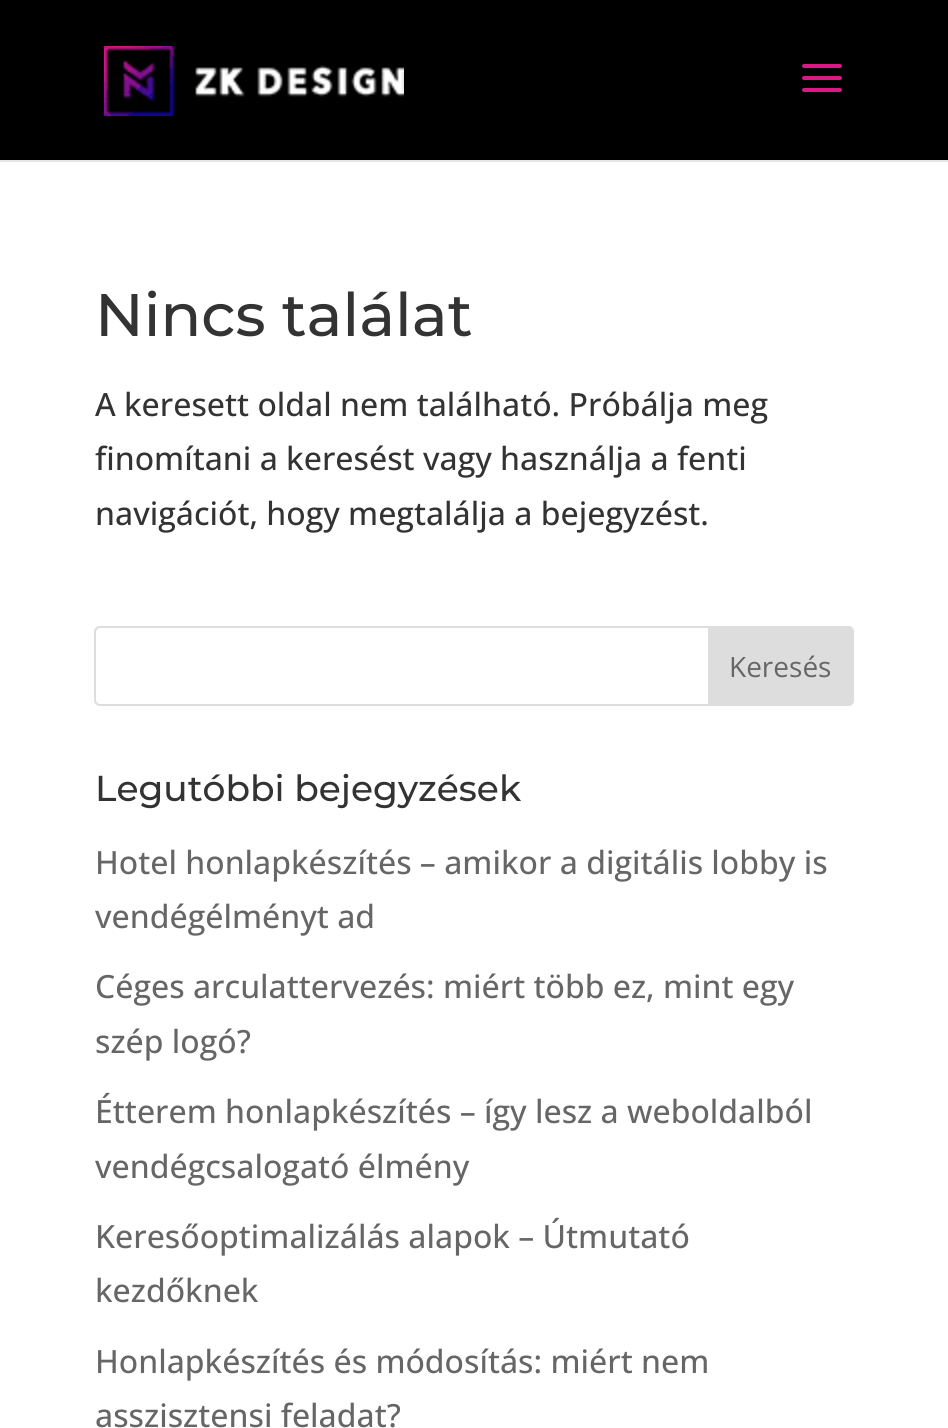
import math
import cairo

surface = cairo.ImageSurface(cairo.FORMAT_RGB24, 948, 1428)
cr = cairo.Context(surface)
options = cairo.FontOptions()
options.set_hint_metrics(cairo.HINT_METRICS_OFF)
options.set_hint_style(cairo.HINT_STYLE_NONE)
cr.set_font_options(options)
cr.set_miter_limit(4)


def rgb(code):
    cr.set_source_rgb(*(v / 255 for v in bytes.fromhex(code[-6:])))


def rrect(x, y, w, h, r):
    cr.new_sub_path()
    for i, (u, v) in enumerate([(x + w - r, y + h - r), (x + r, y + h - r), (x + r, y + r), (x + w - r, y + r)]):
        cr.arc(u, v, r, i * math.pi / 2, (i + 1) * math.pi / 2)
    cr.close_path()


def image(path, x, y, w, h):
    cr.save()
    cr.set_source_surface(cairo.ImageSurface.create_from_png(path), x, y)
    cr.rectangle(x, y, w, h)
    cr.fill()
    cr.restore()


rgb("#ffffff")
cr.paint()
rgb("#e6e6e6")
cr.rectangle(0, 160, 948, 2)
cr.fill()
rgb("#000000")
cr.rectangle(0, 0, 948, 160)
cr.fill()
image("img/1.png", 104, 46, 300, 70)
image("img/2.png", 802, 64, 40, 28)
rrect(95, 627, 758, 78, 5)
rgb("#dddddd")
cr.stroke()
cr.new_path()
cr.move_to(709, 627)
cr.line_to(848, 627)
cr.curve_to(851, 627, 853, 629, 853, 632)
cr.line_to(853, 700)
cr.curve_to(853, 703, 851, 705, 848, 705)
cr.line_to(709, 705)
cr.close_path()
cr.fill_preserve()
cr.stroke()
cr.select_font_face("Montserrat Thin")
cr.set_font_size(60)
rgb("#333333")
cr.move_to(95, 336)
cr.show_text("Nincs találat")
cr.select_font_face("Open Sans Medium")
cr.set_font_size(32)
for x, y, s in [
    (95, 416, "A keresett oldal nem található. Próbálja meg"),
    (95, 470, "finomítani a keresést vagy használja a fenti"),
    (95, 525, "navigációt, hogy megtalálja a bejegyzést."),
]:
    cr.move_to(x, y)
    cr.show_text(s)
cr.select_font_face("Open Sans")
cr.set_font_size(28)
rgb("#666666")
cr.move_to(729, 677)
cr.show_text("Keresés")
cr.select_font_face("Montserrat Thin")
cr.set_font_size(36)
rgb("#333333")
cr.move_to(95, 801)
cr.show_text("Legutóbbi bejegyzések")
cr.select_font_face("Open Sans Medium")
cr.set_font_size(32)
rgb("#666666")
for x, y, s in [
    (95, 874, "Hotel honlapkészítés – amikor a digitális lobby is"),
    (95, 928, "vendégélményt ad"),
    (95, 998, "Céges arculattervezés: miért több ez, mint egy"),
    (95, 1053, "szép logó?"),
    (95, 1123, "Étterem honlapkészítés – így lesz a weboldalból"),
    (95, 1178, "vendégcsalogató élmény"),
    (95, 1248, "Keresőoptimalizálás alapok – Útmutató"),
    (95, 1302, "kezdőknek"),
    (95, 1373, "Honlapkészítés és módosítás: miért nem"),
    (95, 1427, "asszisztensi feladat?"),
]:
    cr.move_to(x, y)
    cr.show_text(s)
surface.write_to_png("page.png")
